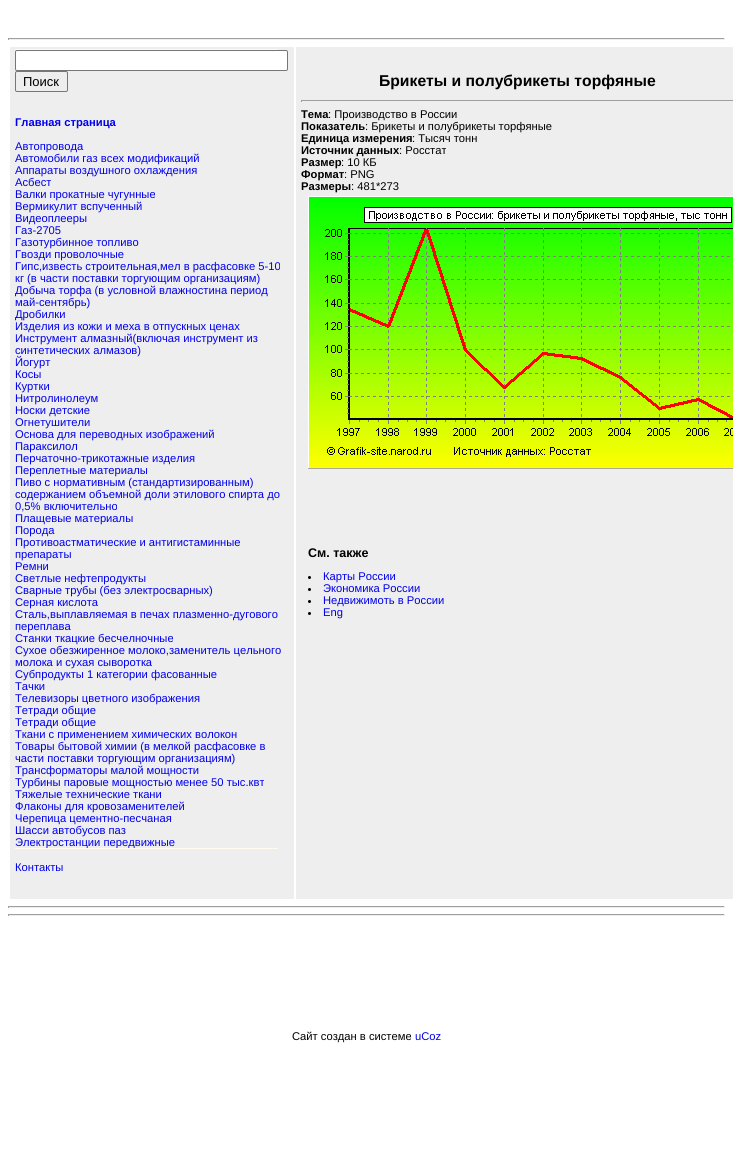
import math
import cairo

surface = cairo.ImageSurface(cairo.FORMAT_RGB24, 733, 1171)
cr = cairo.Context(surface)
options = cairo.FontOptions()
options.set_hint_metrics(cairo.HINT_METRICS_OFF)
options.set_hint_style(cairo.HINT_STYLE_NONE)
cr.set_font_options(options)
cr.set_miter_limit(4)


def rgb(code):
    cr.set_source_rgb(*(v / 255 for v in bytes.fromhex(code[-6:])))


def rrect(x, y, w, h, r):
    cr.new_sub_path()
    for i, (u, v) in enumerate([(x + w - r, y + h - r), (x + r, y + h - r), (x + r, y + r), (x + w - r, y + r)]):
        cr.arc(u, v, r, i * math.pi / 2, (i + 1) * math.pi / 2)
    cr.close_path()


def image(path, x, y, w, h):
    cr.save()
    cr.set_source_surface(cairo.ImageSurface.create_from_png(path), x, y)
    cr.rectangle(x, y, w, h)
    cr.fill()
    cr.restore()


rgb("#ffffff")
cr.paint()
for x, y, w, h, color in [
    (8, 38, 717, 1, "#9f9f9f"),
    (724, 38, 1, 2, "#eeeeee"),
    (8, 39, 717, 1, "#eeeeee"),
    (8, 38, 1, 2, "#9f9f9f"),
    (10, 47, 284, 852, "#eeeeee"),
    (15, 49, 263, 1, "#fffbf0"),
]:
    rgb(color)
    cr.rectangle(x, y, w, h)
    cr.fill()
rgb("#ffffff")
rrect(15.5, 50.5, 272, 20, 1.5)
cr.fill_preserve()
rgb("#767676")
cr.set_line_width(1)
cr.stroke()
rrect(15.5, 71.5, 52, 20, 1.5)
cr.stroke()
for x, y, w, h, color in [
    (296, 47, 437, 852, "#eeeeee"),
    (301, 100, 432, 1, "#9f9f9f"),
    (301, 100, 1, 2, "#9f9f9f"),
]:
    rgb(color)
    cr.rectangle(x, y, w, h)
    cr.fill()
image("img/1.png", 308, 196, 425, 273)
rgb("#000000")
cr.arc(309.5, 577.5, 1.5, 0, 2 * math.pi)
cr.fill()
cr.arc(309.5, 589.5, 1.5, 0, 2 * math.pi)
cr.fill()
cr.arc(309.5, 601.5, 1.5, 0, 2 * math.pi)
cr.fill()
cr.arc(309.5, 613.5, 1.5, 0, 2 * math.pi)
cr.fill()
for x, y, w, h, color in [
    (8, 906, 717, 1, "#9f9f9f"),
    (724, 906, 1, 2, "#eeeeee"),
    (8, 907, 717, 1, "#eeeeee"),
    (8, 906, 1, 2, "#9f9f9f"),
    (8, 914, 717, 1, "#9f9f9f"),
    (724, 914, 1, 2, "#eeeeee"),
    (8, 915, 717, 1, "#eeeeee"),
    (8, 914, 1, 2, "#9f9f9f"),
]:
    rgb(color)
    cr.rectangle(x, y, w, h)
    cr.fill()
cr.select_font_face("Liberation Sans")
cr.set_font_size(13)
rgb("#000000")
cr.move_to(23, 86)
cr.show_text("Поиск")
cr.select_font_face("Liberation Sans", cairo.FONT_SLANT_NORMAL, cairo.FONT_WEIGHT_BOLD)
cr.set_font_size(11.2)
rgb("#0000ee")
cr.move_to(15, 126)
cr.show_text("Главная страница")
cr.select_font_face("Liberation Sans")
for x, y, s in [
    (15, 150, "Автопровода"),
    (15, 162, "Автомобили газ всех модификаций"),
    (15, 174, "Аппараты воздушного охлаждения"),
    (15, 186, "Асбест"),
    (15, 198, "Валки прокатные чугунные"),
    (15, 210, "Вермикулит вспученный"),
    (15, 222, "Видеоплееры"),
    (15, 234, "Газ-2705"),
    (15, 246, "Газотурбинное топливо"),
    (15, 258, "Гвозди проволочные"),
    (15, 270, "Гипс,известь строительная,мел в расфасовке 5-10"),
    (15, 282, "кг (в части поставки торгующим организациям)"),
    (15, 294, "Добыча торфа (в условной влажностина период"),
    (15, 306, "май-сентябрь)"),
    (15, 318, "Дробилки"),
    (15, 330, "Изделия из кожи и меха в отпускных ценах"),
    (15, 342, "Инструмент алмазный(включая инструмент из"),
    (15, 354, "синтетических алмазов)"),
    (15, 366, "Йогурт"),
    (15, 378, "Косы"),
    (15, 390, "Куртки"),
    (15, 402, "Нитролинолеум"),
    (15, 414, "Носки детские"),
    (15, 426, "Огнетушители"),
    (15, 438, "Основа для переводных изображений"),
    (15, 450, "Параксилол"),
    (15, 462, "Перчаточно-трикотажные изделия"),
    (15, 474, "Переплетные материалы"),
    (15, 486, "Пиво с нормативным (стандартизированным)"),
    (15, 498, "содержанием объемной доли этилового спирта до"),
    (15, 510, "0,5% включительно"),
    (15, 522, "Плащевые материалы"),
    (15, 534, "Порода"),
    (15, 546, "Противоастматические и антигистаминные"),
    (15, 558, "препараты"),
    (15, 570, "Ремни"),
    (15, 582, "Светлые нефтепродукты"),
    (15, 594, "Сварные трубы (без электросварных)"),
    (15, 606, "Серная кислота"),
    (15, 618, "Сталь,выплавляемая в печах плазменно-дугового"),
    (15, 630, "переплава"),
    (15, 642, "Станки ткацкие бесчелночные"),
    (15, 654, "Сухое обезжиренное молоко,заменитель цельного"),
    (15, 666, "молока и сухая сыворотка"),
    (15, 678, "Субпродукты 1 категории фасованные"),
    (15, 690, "Тачки"),
    (15, 702, "Телевизоры цветного изображения"),
    (15, 714, "Тетради общие"),
    (15, 726, "Тетради общие"),
    (15, 738, "Ткани с применением химических волокон"),
    (15, 750, "Товары бытовой химии (в мелкой расфасовке в"),
    (15, 762, "части поставки торгующим организациям)"),
    (15, 774, "Трансформаторы малой мощности"),
    (15, 786, "Турбины паровые мощностью менее 50 тыс.квт"),
    (15, 798, "Тяжелые технические ткани"),
    (15, 810, "Флаконы для кровозаменителей"),
    (15, 822, "Черепица цементно-песчаная"),
    (15, 834, "Шасси автобусов паз"),
    (15, 846, "Электростанции передвижные"),
]:
    cr.move_to(x, y)
    cr.show_text(s)
rgb("#fffbf0")
cr.rectangle(15, 848, 263, 1)
cr.fill()
rgb("#0000ee")
cr.move_to(15, 871)
cr.show_text("Контакты")
cr.select_font_face("Liberation Sans", cairo.FONT_SLANT_NORMAL, cairo.FONT_WEIGHT_BOLD)
cr.set_font_size(15.7)
rgb("#000000")
cr.move_to(379, 86)
cr.show_text("Брикеты и полубрикеты торфяные")
cr.set_font_size(11.2)
cr.move_to(301, 118)
cr.show_text("Тема")
cr.select_font_face("Liberation Sans")
cr.move_to(328, 118)
cr.show_text(": Производство в России")
cr.select_font_face("Liberation Sans", cairo.FONT_SLANT_NORMAL, cairo.FONT_WEIGHT_BOLD)
cr.move_to(301, 130)
cr.show_text("Показатель")
cr.select_font_face("Liberation Sans")
cr.move_to(365, 130)
cr.show_text(": Брикеты и полубрикеты торфяные")
cr.select_font_face("Liberation Sans", cairo.FONT_SLANT_NORMAL, cairo.FONT_WEIGHT_BOLD)
cr.move_to(301, 142)
cr.show_text("Единица измерения")
cr.select_font_face("Liberation Sans")
cr.move_to(412, 142)
cr.show_text(": Тысяч тонн")
cr.select_font_face("Liberation Sans", cairo.FONT_SLANT_NORMAL, cairo.FONT_WEIGHT_BOLD)
cr.move_to(301, 154)
cr.show_text("Источник данных")
cr.select_font_face("Liberation Sans")
cr.move_to(399, 154)
cr.show_text(": Росстат")
cr.select_font_face("Liberation Sans", cairo.FONT_SLANT_NORMAL, cairo.FONT_WEIGHT_BOLD)
cr.move_to(301, 166)
cr.show_text("Размер")
cr.select_font_face("Liberation Sans")
cr.move_to(341, 166)
cr.show_text(": 10 КБ")
cr.select_font_face("Liberation Sans", cairo.FONT_SLANT_NORMAL, cairo.FONT_WEIGHT_BOLD)
cr.move_to(301, 178)
cr.show_text("Формат")
cr.select_font_face("Liberation Sans")
cr.move_to(344, 178)
cr.show_text(": PNG")
cr.select_font_face("Liberation Sans", cairo.FONT_SLANT_NORMAL, cairo.FONT_WEIGHT_BOLD)
cr.move_to(301, 190)
cr.show_text("Размеры")
cr.select_font_face("Liberation Sans")
cr.move_to(351, 190)
cr.show_text(": 481*273")
cr.select_font_face("Liberation Sans", cairo.FONT_SLANT_NORMAL, cairo.FONT_WEIGHT_BOLD)
cr.set_font_size(12.5)
cr.move_to(308, 557)
cr.show_text("См. также")
cr.select_font_face("Liberation Sans")
cr.set_font_size(11.2)
rgb("#0000ee")
for x, y, s in [
    (323, 580, "Карты России"),
    (323, 592, "Экономика России"),
    (323, 604, "Недвижимоть в России"),
    (323, 616, "Eng"),
]:
    cr.move_to(x, y)
    cr.show_text(s)
rgb("#000000")
cr.move_to(292, 1040)
cr.show_text("Сайт создан в системе")
rgb("#0000ee")
cr.move_to(415, 1040)
cr.show_text("uCoz")
surface.write_to_png("page.png")
